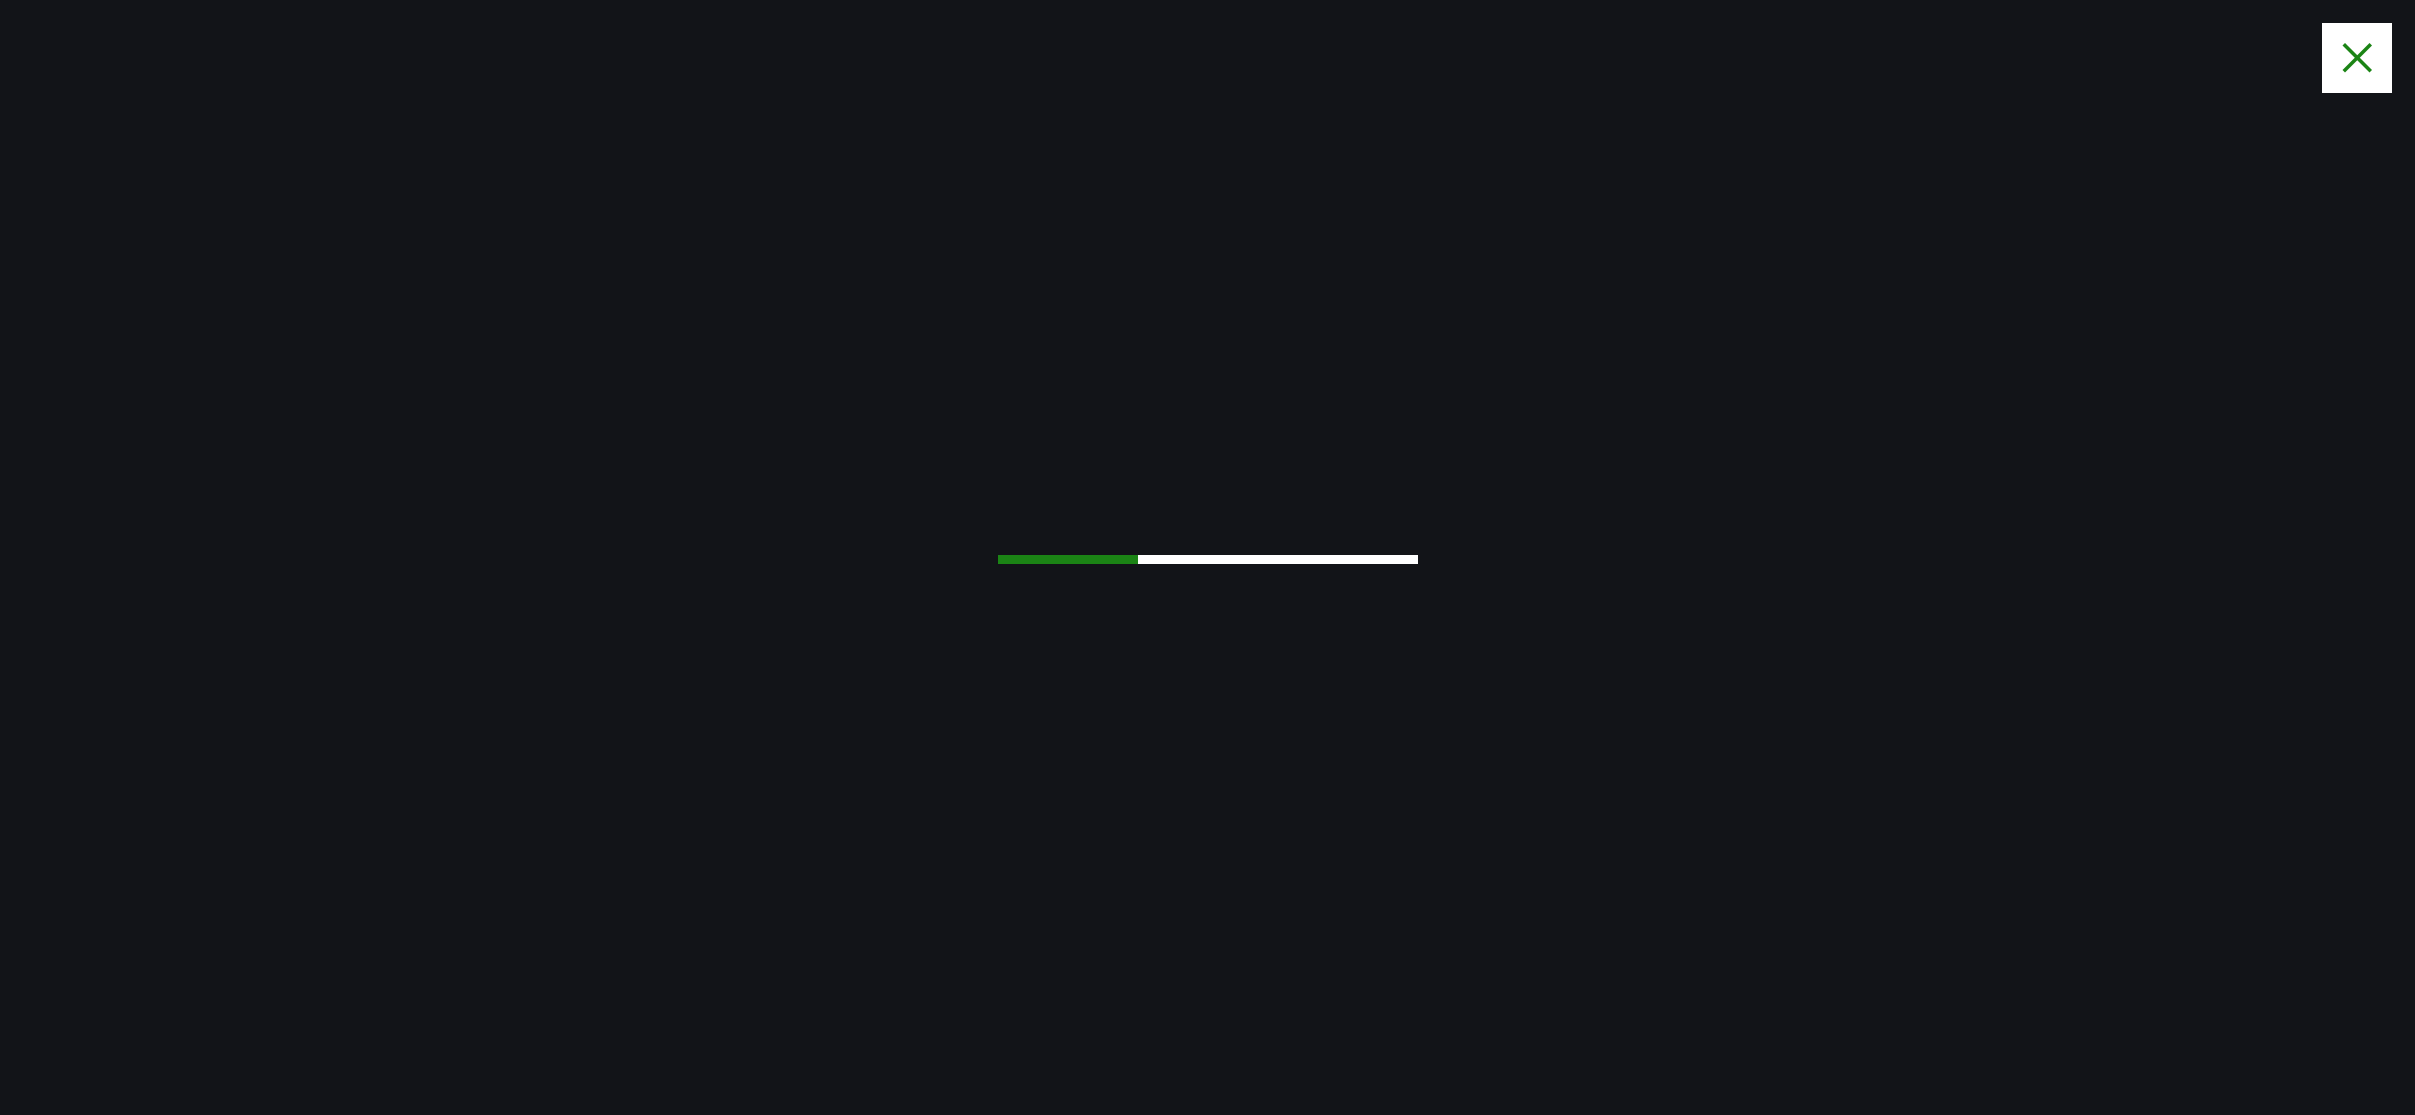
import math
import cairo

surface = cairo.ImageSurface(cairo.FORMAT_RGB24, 2415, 1115)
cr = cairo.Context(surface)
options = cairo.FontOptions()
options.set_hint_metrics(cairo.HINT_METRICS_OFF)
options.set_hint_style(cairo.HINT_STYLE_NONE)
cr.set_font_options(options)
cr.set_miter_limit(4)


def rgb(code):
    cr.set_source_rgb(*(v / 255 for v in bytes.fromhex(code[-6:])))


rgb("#121418")
cr.paint()
rgb("#ffffff")
cr.rectangle(2322, 23, 70, 70)
cr.fill()
rgb("#1b8415")
cr.new_path()
cr.move_to(2342.5, 70)
cr.line_to(2369.5, 43)
cr.line_to(2372, 45.5)
cr.line_to(2345, 72.5)
cr.close_path()
cr.fill()
cr.new_path()
cr.move_to(2369.5, 72.5)
cr.line_to(2342.5, 45.5)
cr.line_to(2345, 43)
cr.line_to(2372, 70)
cr.close_path()
cr.fill()
rgb("#ffffff")
cr.rectangle(1138, 555, 280, 9)
cr.fill()
rgb("#1b8415")
cr.rectangle(998, 555, 140, 9)
cr.fill()
surface.write_to_png("page.png")
